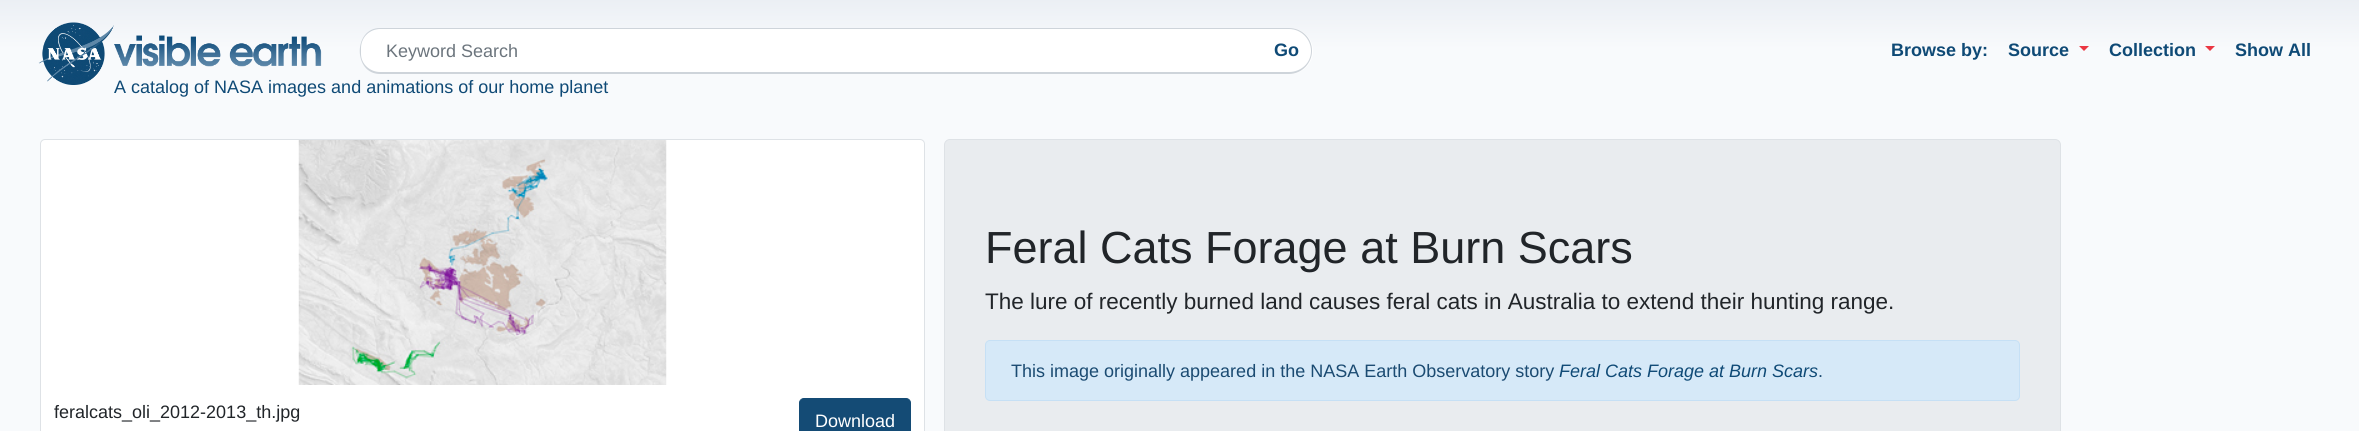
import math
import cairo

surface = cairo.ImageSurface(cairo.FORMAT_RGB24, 2359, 431)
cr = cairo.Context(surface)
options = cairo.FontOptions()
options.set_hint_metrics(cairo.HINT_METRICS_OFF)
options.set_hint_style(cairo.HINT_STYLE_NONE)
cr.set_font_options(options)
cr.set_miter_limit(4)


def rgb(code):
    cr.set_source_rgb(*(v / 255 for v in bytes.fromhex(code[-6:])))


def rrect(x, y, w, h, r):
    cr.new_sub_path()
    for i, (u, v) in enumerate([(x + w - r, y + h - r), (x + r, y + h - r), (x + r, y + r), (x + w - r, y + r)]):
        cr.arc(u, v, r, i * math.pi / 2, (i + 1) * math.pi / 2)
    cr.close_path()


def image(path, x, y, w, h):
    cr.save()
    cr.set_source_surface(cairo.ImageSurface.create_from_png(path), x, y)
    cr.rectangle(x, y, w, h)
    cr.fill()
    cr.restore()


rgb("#ffffff")
cr.paint()
gradient = cairo.LinearGradient(1180, 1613, 1180, 0)
gradient.add_color_stop_rgba(0.8, 0.973, 0.98, 0.988, 1)
gradient.add_color_stop_rgba(0.97, 0.973, 0.98, 0.988, 1)
gradient.add_color_stop_rgba(1, 0.922, 0.937, 0.957, 1)
cr.set_source(gradient)
cr.rectangle(0, 0, 2359, 431)
cr.fill()
rgb("#ffffff")
cr.new_path()
cr.move_to(380, 29)
cr.line_to(1261, 29)
cr.line_to(1261, 73)
cr.line_to(380, 73)
cr.curve_to(369.5, 73, 361, 64.5, 361, 54)
cr.line_to(361, 48)
cr.curve_to(361, 37.5, 369.5, 29, 380, 29)
cr.close_path()
cr.fill()
rgb("#ced4da")
cr.set_fill_rule(cairo.FILL_RULE_EVEN_ODD)
cr.new_path()
cr.move_to(380, 28)
cr.line_to(1261, 28)
cr.line_to(1261, 74)
cr.line_to(380, 74)
cr.curve_to(353, 74, 353, 28, 380, 28)
cr.close_path()
cr.move_to(380, 29)
cr.line_to(1261, 29)
cr.line_to(1261, 72)
cr.line_to(380, 72)
cr.curve_to(370, 72, 361, 64, 361, 54)
cr.line_to(361, 48)
cr.curve_to(361, 37, 370, 29, 380, 29)
cr.close_path()
cr.fill()
rgb("#ffffff")
cr.new_path()
cr.move_to(1261, 28)
cr.line_to(1290, 28)
cr.curve_to(1302.5, 28, 1313, 38.5, 1313, 51)
cr.curve_to(1313, 63.5, 1302.5, 74, 1290, 74)
cr.line_to(1261, 74)
cr.close_path()
cr.fill()
rgb("#ced4da")
cr.new_path()
cr.move_to(1261, 28)
cr.line_to(1289, 28)
cr.curve_to(1302, 28, 1312, 38, 1312, 51)
cr.curve_to(1312, 63, 1302, 74, 1289, 74)
cr.line_to(1261, 74)
cr.close_path()
cr.move_to(1261, 29)
cr.line_to(1289, 29)
cr.curve_to(1301, 29, 1311, 39, 1311, 51)
cr.curve_to(1311, 63, 1301, 72, 1289, 72)
cr.line_to(1261, 72)
cr.close_path()
cr.fill()
rgb("#eb3642")
cr.set_fill_rule(cairo.FILL_RULE_WINDING)
cr.new_path()
cr.move_to(2079, 46)
cr.line_to(2089, 46)
cr.line_to(2084, 51)
cr.close_path()
cr.fill()
cr.new_path()
cr.move_to(2205, 46)
cr.line_to(2215, 46)
cr.line_to(2210, 51)
cr.close_path()
cr.fill()
image("img/1.png", 38, 22, 76, 63)
image("img/2.png", 114, 35, 208, 32)
rgb("#e9ecef")
rrect(944.5, 139.5, 1116, 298, 5.5)
cr.fill_preserve()
rgb("#dee2e6")
cr.set_line_width(1)
cr.stroke()
rgb("#d6e9f8")
rrect(985.5, 340.5, 1034, 60, 4.5)
cr.fill_preserve()
rgb("#c6e0f5")
cr.stroke()
rgb("#ffffff")
rrect(40.5, 139.5, 884, 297, 4.5)
cr.fill_preserve()
rgb("#dee2e6")
cr.stroke()
image("img/3.png", 298, 140, 369, 245)
rgb("#144b75")
rrect(799.5, 398.5, 111, 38, 4.5)
cr.fill_preserve()
cr.stroke()
cr.select_font_face("Liberation Sans")
cr.set_font_size(18)
rgb("#6c757d")
cr.move_to(386, 57)
cr.show_text("Keyword Search")
cr.select_font_face("Liberation Sans", cairo.FONT_SLANT_NORMAL, cairo.FONT_WEIGHT_BOLD)
rgb("#0f4a76")
for x, y, s in [
    (1274, 56, "Go"),
    (1891, 56, "Browse by:"),
    (2008, 56, "Source"),
    (2109, 56, "Collection"),
    (2235, 56, "Show All"),
]:
    cr.move_to(x, y)
    cr.show_text(s)
cr.select_font_face("Liberation Sans")
cr.move_to(114, 93)
cr.show_text("A catalog of NASA images and animations of our home planet")
cr.set_font_size(45)
rgb("#212529")
cr.move_to(985, 263)
cr.show_text("Feral Cats Forage at Burn Scars")
cr.set_font_size(22.5)
cr.move_to(985, 309)
cr.show_text("The lure of recently burned land causes feral cats in Australia to extend their hunting range.")
cr.set_font_size(18)
rgb("#1b4b72")
cr.move_to(1011, 377)
cr.show_text("This image originally appeared in the NASA Earth Observatory story")
cr.select_font_face("Liberation Sans", cairo.FONT_SLANT_ITALIC)
rgb("#0f4a76")
cr.move_to(1559, 377)
cr.show_text("Feral Cats Forage at Burn Scars")
cr.select_font_face("Liberation Sans")
rgb("#1b4b72")
cr.move_to(1818, 377)
cr.show_text(".")
rgb("#212529")
cr.move_to(54, 418)
cr.show_text("feralcats_oli_2012-2013_th.jpg")
rgb("#ffffff")
cr.move_to(815, 427)
cr.show_text("Download")
surface.write_to_png("page.png")
